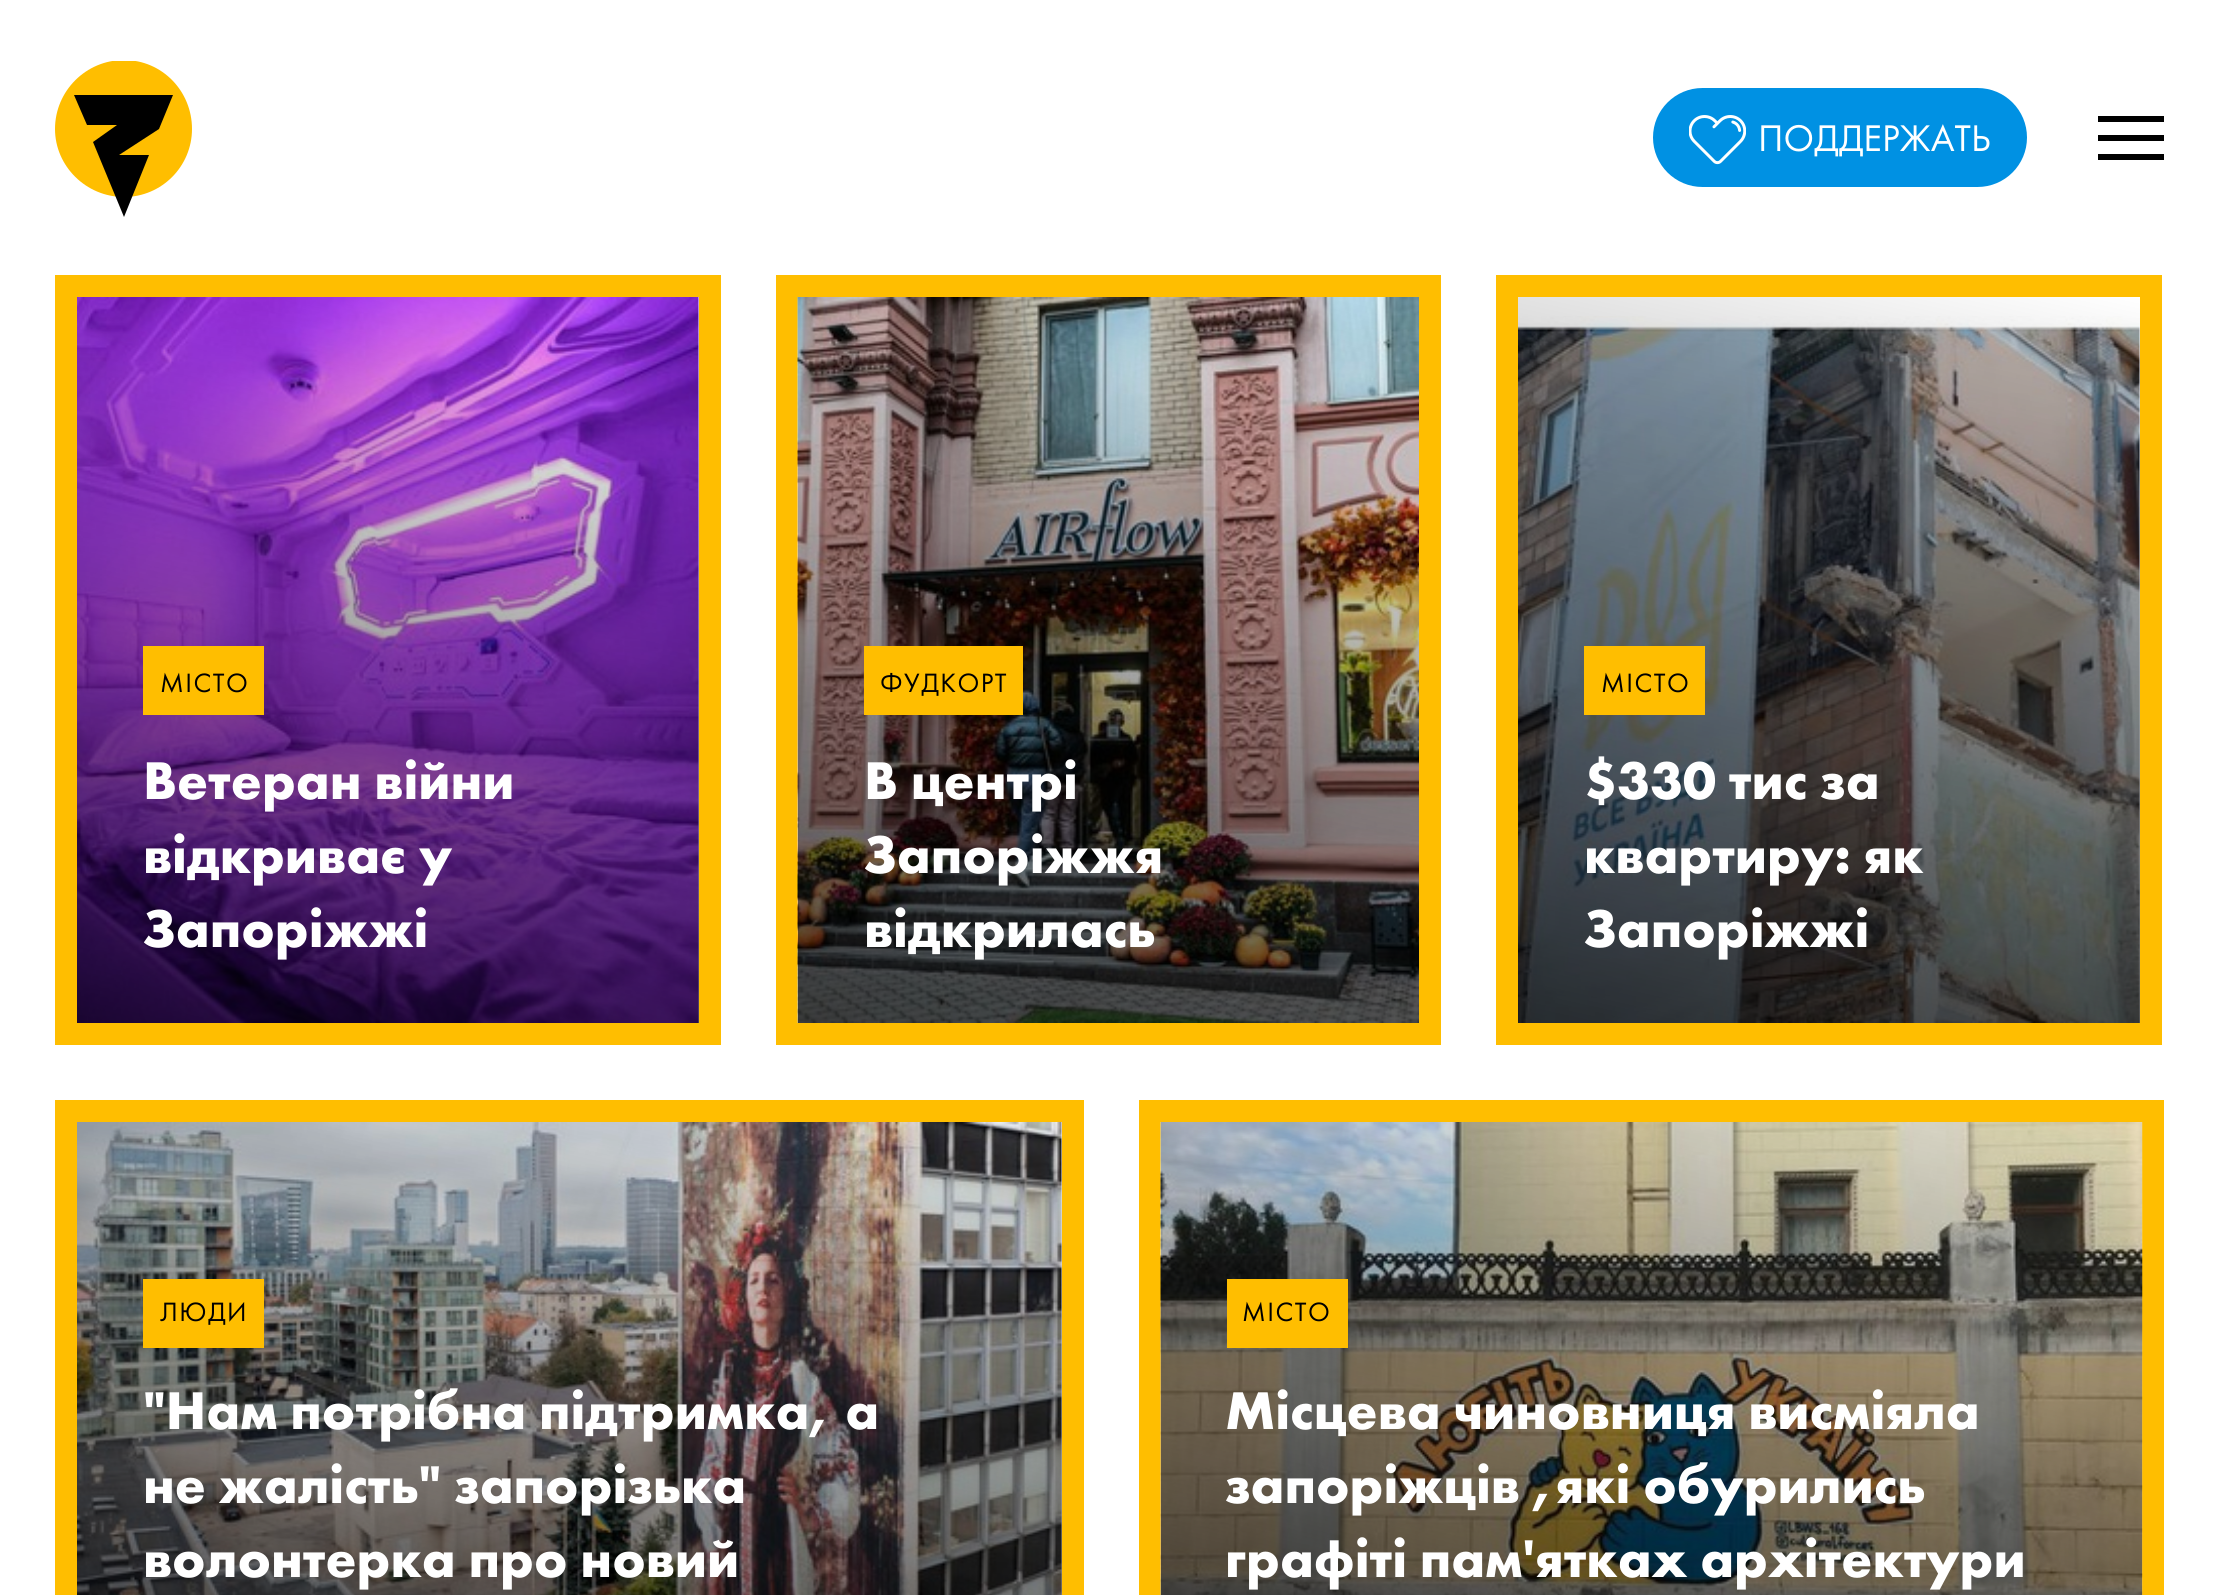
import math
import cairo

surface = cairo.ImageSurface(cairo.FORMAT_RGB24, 2219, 1595)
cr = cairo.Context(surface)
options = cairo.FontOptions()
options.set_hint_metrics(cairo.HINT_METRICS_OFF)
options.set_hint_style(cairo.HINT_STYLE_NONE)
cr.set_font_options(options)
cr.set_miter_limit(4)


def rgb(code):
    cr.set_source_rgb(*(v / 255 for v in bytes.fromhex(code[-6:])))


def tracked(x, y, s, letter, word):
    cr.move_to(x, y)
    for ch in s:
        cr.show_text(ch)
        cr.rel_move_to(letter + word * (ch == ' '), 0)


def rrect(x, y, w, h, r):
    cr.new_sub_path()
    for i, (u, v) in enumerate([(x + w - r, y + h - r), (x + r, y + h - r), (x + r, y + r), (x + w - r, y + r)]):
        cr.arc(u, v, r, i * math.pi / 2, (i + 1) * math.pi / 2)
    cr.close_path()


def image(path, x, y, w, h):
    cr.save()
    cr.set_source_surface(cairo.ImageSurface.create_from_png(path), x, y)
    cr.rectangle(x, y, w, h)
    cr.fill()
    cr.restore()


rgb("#ffffff")
cr.paint()
cr.save()
cr.rectangle(55, 61, 138, 156)
cr.clip()
rgb("#ffbe00")
cr.new_path()
cr.move_to(124, 60)
cr.curve_to(86, 60, 55, 91, 55, 129)
cr.curve_to(55, 166, 86, 197, 124, 197)
cr.curve_to(162, 197, 192, 166, 192, 129)
cr.curve_to(192, 91, 162, 60, 124, 60)
cr.close_path()
cr.fill()
cr.restore()
rgb("#000000")
cr.new_path()
cr.move_to(149, 155)
cr.line_to(119, 155)
cr.line_to(159, 129)
cr.line_to(173, 95)
cr.line_to(74, 95)
cr.line_to(87, 125)
cr.line_to(117, 125)
cr.line_to(93, 142)
cr.line_to(124, 217)
cr.close_path()
cr.fill()
rgb("#0091e3")
rrect(1653, 88, 374, 99, 49.5)
cr.fill()
image("img/1.png", 1689, 115, 57, 50)
for x, y, w, h, color in [
    (2098, 135, 66, 6, "#000000"),
    (2098, 116, 66, 6, "#000000"),
    (2098, 154, 66, 6, "#000000"),
]:
    rgb(color)
    cr.rectangle(x, y, w, h)
    cr.fill()
cr.rectangle(66, 286, 644, 748)
rgb("#ffbe00")
cr.set_line_width(22)
cr.stroke()
image("img/2.png", 77, 297, 622, 726)
gradient = cairo.LinearGradient(297, 1072, 478, 248)
gradient.add_color_stop_rgba(0, 0, 0, 0, 0.7)
gradient.add_color_stop_rgba(1, 0, 0, 0, 0)
cr.set_source(gradient)
cr.rectangle(77, 297, 622, 726)
cr.fill()
rgb("#ffbe00")
cr.rectangle(143, 646, 121, 69)
cr.fill()
cr.rectangle(787, 286, 643, 748)
cr.stroke()
image("img/3.png", 797, 297, 622, 726)
cr.rectangle(864, 646, 159, 69)
cr.fill()
cr.rectangle(1507, 286, 644, 748)
cr.stroke()
image("img/4.png", 1518, 316, 622, 707)
gradient = cairo.LinearGradient(1738, 1072, 1919, 248)
gradient.add_color_stop_rgba(0, 0, 0, 0, 0.7)
gradient.add_color_stop_rgba(1, 0, 0, 0, 0)
cr.set_source(gradient)
cr.rectangle(1518, 297, 622, 726)
cr.fill()
rgb("#ffbe00")
cr.rectangle(1584, 646, 121, 69)
cr.fill()
cr.rectangle(66, 1111, 1007, 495)
cr.stroke()
image("img/5.png", 77, 1122, 985, 473)
gradient = cairo.LinearGradient(490, 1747, 648, 1031)
gradient.add_color_stop_rgba(0, 0, 0, 0, 0.7)
gradient.add_color_stop_rgba(1, 0, 0, 0, 0)
cr.set_source(gradient)
cr.rectangle(77, 1122, 985, 473)
cr.fill()
rgb("#ffbe00")
cr.rectangle(143, 1279, 121, 69)
cr.fill()
cr.rectangle(1150, 1111, 1003, 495)
cr.stroke()
image("img/6.png", 1160, 1122, 983, 473)
cr.rectangle(1227, 1279, 121, 69)
cr.fill()
cr.select_font_face("Futura PT")
cr.set_font_size(38.5)
rgb("#ffffff")
cr.move_to(1758, 151)
cr.show_text("ПОДДЕРЖАТЬ")
cr.set_font_size(27.5)
rgb("#000000")
tracked(160, 692, "МІСТО", 1.5, 0)
cr.select_font_face("Futura PT", cairo.FONT_SLANT_NORMAL, cairo.FONT_WEIGHT_BOLD)
cr.set_font_size(55)
rgb("#ffffff")
for x, y, s in [
    (143, 799, "Ветеран війни"),
    (143, 873, "відкриває у"),
    (143, 947, "Запоріжжі"),
]:
    cr.move_to(x, y)
    cr.show_text(s)
cr.select_font_face("Futura PT")
cr.set_font_size(27.5)
rgb("#000000")
tracked(880, 692, "ФУДКОРТ", 1.5, 0)
cr.select_font_face("Futura PT", cairo.FONT_SLANT_NORMAL, cairo.FONT_WEIGHT_BOLD)
cr.set_font_size(55)
rgb("#ffffff")
for x, y, s in [
    (864, 799, "В центрі"),
    (864, 873, "Запоріжжя"),
    (864, 947, "відкрилась"),
]:
    cr.move_to(x, y)
    cr.show_text(s)
cr.select_font_face("Futura PT")
cr.set_font_size(27.5)
rgb("#000000")
tracked(1601, 692, "МІСТО", 1.5, 0)
cr.select_font_face("Futura PT", cairo.FONT_SLANT_NORMAL, cairo.FONT_WEIGHT_BOLD)
cr.set_font_size(55)
rgb("#ffffff")
for x, y, s in [
    (1584, 799, "$330 тис за"),
    (1584, 873, "квартиру: як"),
    (1584, 947, "Запоріжжі"),
]:
    cr.move_to(x, y)
    cr.show_text(s)
cr.select_font_face("Futura PT")
cr.set_font_size(27.5)
rgb("#000000")
tracked(160, 1321, "ЛЮДИ", 1.5, 0)
cr.select_font_face("Futura PT", cairo.FONT_SLANT_NORMAL, cairo.FONT_WEIGHT_BOLD)
cr.set_font_size(55)
rgb("#ffffff")
for x, y, s in [
    (143, 1429, "\"Нам потрібна підтримка, а"),
    (143, 1503, "не жалість\" запорізька"),
    (143, 1577, "волонтерка про новий"),
]:
    cr.move_to(x, y)
    cr.show_text(s)
cr.select_font_face("Futura PT")
cr.set_font_size(27.5)
rgb("#000000")
tracked(1242, 1321, "МІСТО", 1.5, 0)
cr.select_font_face("Futura PT", cairo.FONT_SLANT_NORMAL, cairo.FONT_WEIGHT_BOLD)
cr.set_font_size(55)
rgb("#ffffff")
for x, y, s in [
    (1225, 1429, "Місцева чиновниця висміяла"),
    (1225, 1503, "запоріжців ,які обурились"),
    (1225, 1577, "графіті пам'ятках архітектури"),
]:
    cr.move_to(x, y)
    cr.show_text(s)
surface.write_to_png("page.png")
